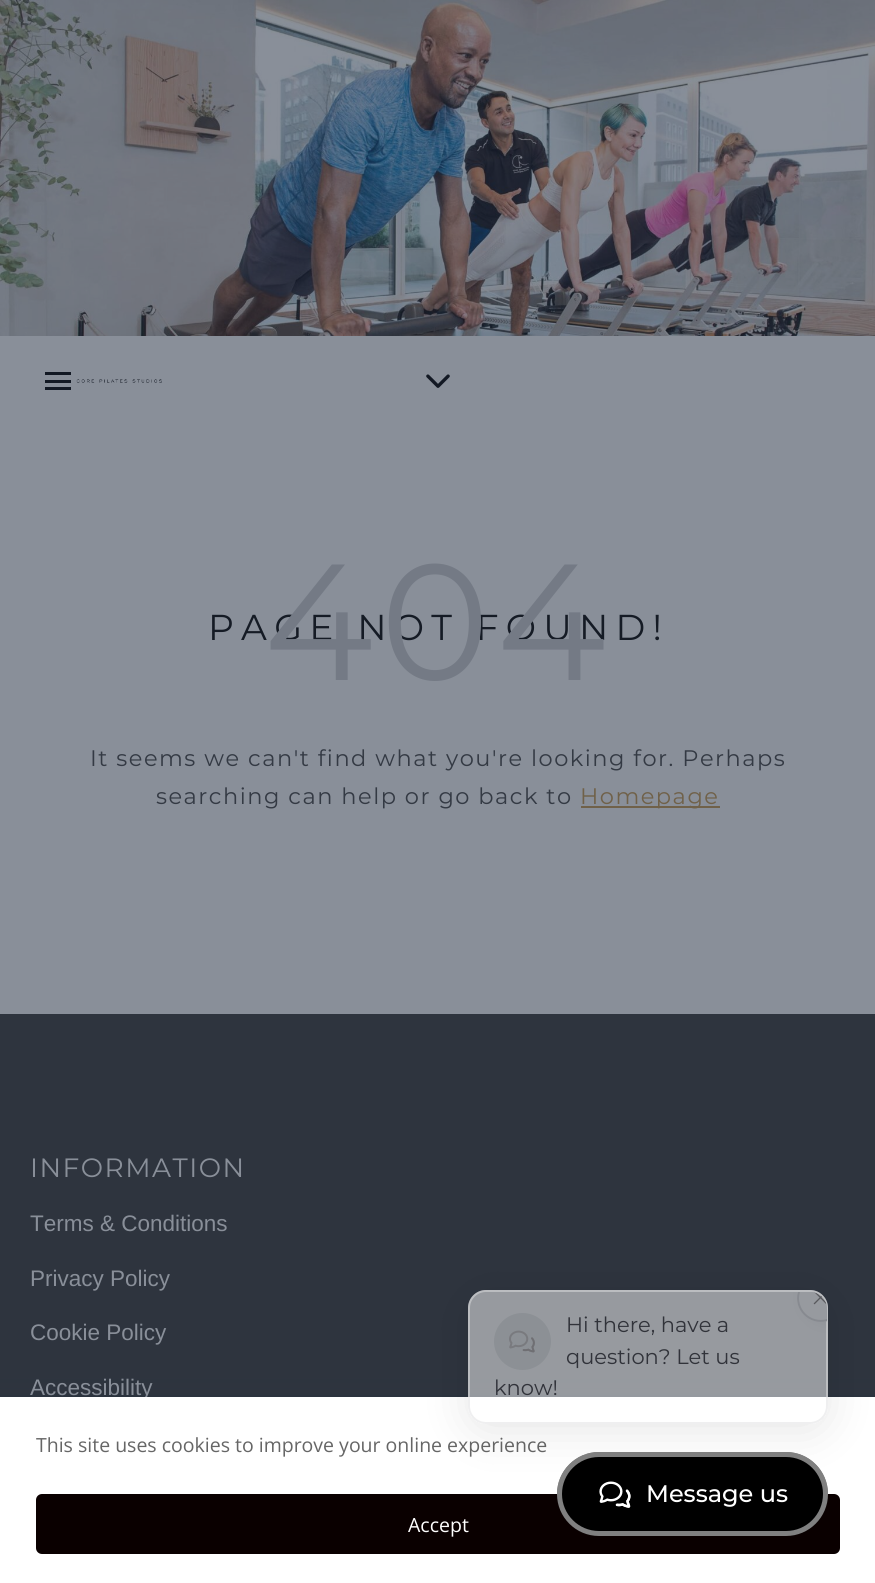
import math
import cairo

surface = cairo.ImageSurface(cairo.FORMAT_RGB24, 875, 1583)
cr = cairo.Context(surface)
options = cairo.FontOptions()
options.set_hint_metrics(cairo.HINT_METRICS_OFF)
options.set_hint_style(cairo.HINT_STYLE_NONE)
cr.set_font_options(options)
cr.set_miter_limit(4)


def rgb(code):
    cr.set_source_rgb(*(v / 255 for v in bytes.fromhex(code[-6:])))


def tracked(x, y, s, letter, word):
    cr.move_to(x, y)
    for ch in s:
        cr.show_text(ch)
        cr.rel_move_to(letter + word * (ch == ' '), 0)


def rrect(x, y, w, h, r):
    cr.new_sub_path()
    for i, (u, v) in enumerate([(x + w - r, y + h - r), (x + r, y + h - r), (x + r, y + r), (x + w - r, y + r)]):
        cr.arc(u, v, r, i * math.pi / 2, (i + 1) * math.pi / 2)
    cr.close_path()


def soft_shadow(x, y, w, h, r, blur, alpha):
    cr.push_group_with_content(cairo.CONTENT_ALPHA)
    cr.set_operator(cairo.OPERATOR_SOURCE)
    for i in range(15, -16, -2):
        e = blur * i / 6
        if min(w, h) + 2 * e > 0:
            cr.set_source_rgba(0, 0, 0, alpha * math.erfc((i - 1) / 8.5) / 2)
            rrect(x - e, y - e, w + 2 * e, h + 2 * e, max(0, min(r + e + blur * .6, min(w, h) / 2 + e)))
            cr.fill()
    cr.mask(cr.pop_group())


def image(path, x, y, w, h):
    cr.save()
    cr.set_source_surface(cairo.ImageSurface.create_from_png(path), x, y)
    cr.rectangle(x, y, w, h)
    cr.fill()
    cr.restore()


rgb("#898f99")
cr.paint()
image("img/1.png", 0, 0, 875, 336)
for x, y, w, h, color in [
    (45, 372, 26, 3, "#131924"),
    (45, 380, 26, 3, "#131924"),
    (45, 387, 26, 3, "#131924"),
]:
    rgb(color)
    cr.rectangle(x, y, w, h)
    cr.fill()
image("img/2.png", 76, 379, 86, 4)
image("img/3.png", 426, 374, 24, 14)
rgb("#706149")
cr.rectangle(581, 806, 139, 2)
cr.fill()
rgb("#2e343e")
cr.rectangle(0, 1014, 875, 383)
cr.fill()
rgb("#242f42")
soft_shadow(-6, 1406, 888, 169, 0, 15, 0.31)
cr.select_font_face("Montserrat Thin")
cr.set_font_size(36)
rgb("#151b25")
tracked(208, 640, "PAGE NOT FOUND!", 7.25, 0)
cr.set_font_size(165)
rgb("#747a85")
tracked(264, 680, "404", 7.25, 0)
cr.set_font_size(22.5)
rgb("#343a44")
tracked(90, 766, "It seems we can't find what you're looking for. Perhaps", 1.5, 0)
tracked(156, 804, "searching can help or go back to", 1.5, 0)
rgb("#706149")
tracked(580, 804, "Homepage", 1.5, 0)
cr.set_font_size(26.5)
rgb("#898f99")
tracked(30, 1177, "INFORMATION", 1.5, 0)
cr.select_font_face("Liberation Sans")
cr.set_font_size(22.5)
for x, y, s in [
    (30, 1231, "Terms & Conditions"),
    (30, 1286, "Privacy Policy"),
    (30, 1340, "Cookie Policy"),
    (30, 1395, "Accessibility"),
]:
    cr.move_to(x, y)
    cr.show_text(s)
cr.rectangle(-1, 1396, 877, 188)
cr.set_source_rgba(0.141, 0.184, 0.259, 0.08)
cr.stroke()
rgb("#ffffff")
cr.rectangle(0, 1397, 875, 186)
cr.fill()
cr.select_font_face("Open Sans")
cr.set_font_size(19.5)
rgb("#666666")
cr.move_to(36, 1452)
cr.show_text("This site uses cookies to improve your online experience")
rgb("#0a0000")
rrect(37, 1495, 802, 58, 5)
cr.fill_preserve()
cr.stroke()
rgb("#ffffff")
cr.move_to(408, 1532)
cr.show_text("Accept")
cr.save()
cr.set_fill_rule(cairo.FILL_RULE_EVEN_ODD)
cr.new_path()
cr.move_to(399, 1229)
cr.line_to(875, 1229)
cr.line_to(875, 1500)
cr.line_to(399, 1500)
cr.close_path()
cr.move_to(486, 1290)
cr.line_to(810, 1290)
cr.curve_to(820, 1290, 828, 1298, 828, 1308)
cr.line_to(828, 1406)
cr.curve_to(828, 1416, 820, 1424, 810, 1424)
cr.line_to(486, 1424)
cr.curve_to(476, 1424, 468, 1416, 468, 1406)
cr.line_to(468, 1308)
cr.curve_to(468, 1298, 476, 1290, 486, 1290)
cr.close_path()
cr.clip()
rgb("#000000")
soft_shadow(468, 1298, 360, 133, 18, 22.5, 0.1)
cr.restore()
cr.set_source_rgba(1, 1, 1, 0.5)
rrect(468, 1290, 360, 134, 18)
cr.fill()
rrect(469, 1291, 358, 132, 17)
cr.set_source_rgba(0.875, 0.878, 0.886, 0.5)
cr.stroke()
rgb("#8c9095")
cr.arc(522.5, 1341.5, 28.5, 0, 2 * math.pi)
cr.fill()
image("img/4.png", 509, 1330, 26, 23)
cr.select_font_face("Montserrat Thin")
cr.set_font_size(21)
rgb("#31333a")
cr.move_to(566, 1332)
cr.show_text("Hi there, have a")
cr.save()
rrect(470, 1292, 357, 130, 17)
cr.clip()
rgb("#171a1f")
soft_shadow(804, 1274, 48, 48, 24, 7.5, 0.07)
cr.restore()
cr.save()
rrect(470, 1292, 357, 130, 17)
cr.clip()
rgb("#979a9f")
cr.arc(821, 1298, 24, 0, 2 * math.pi)
cr.fill()
cr.restore()
rgb("#878a90")
cr.new_path()
cr.move_to(827, 1321)
cr.curve_to(809.5, 1326, 793, 1309.5, 798, 1292)
cr.line_to(800, 1292)
cr.curve_to(795, 1308.5, 810.5, 1324, 827, 1319)
cr.close_path()
cr.fill()
image("img/5.png", 813, 1292, 14, 13)
rgb("#31333a")
cr.move_to(566, 1364)
cr.show_text("question? Let us")
cr.move_to(494, 1395)
cr.show_text("know!")
rgb("#000000")
rrect(557, 1452, 271, 84, 42)
cr.fill()
rrect(559.5, 1454.5, 266, 79, 39.5)
cr.set_source_rgba(1, 1, 1, 0.5)
cr.set_line_width(5)
cr.stroke()
image("img/6.png", 599, 1481, 32, 27)
cr.select_font_face("Montserrat Medium")
cr.set_font_size(24)
rgb("#ffffff")
cr.move_to(646, 1502)
cr.show_text("Message us")
surface.write_to_png("page.png")
